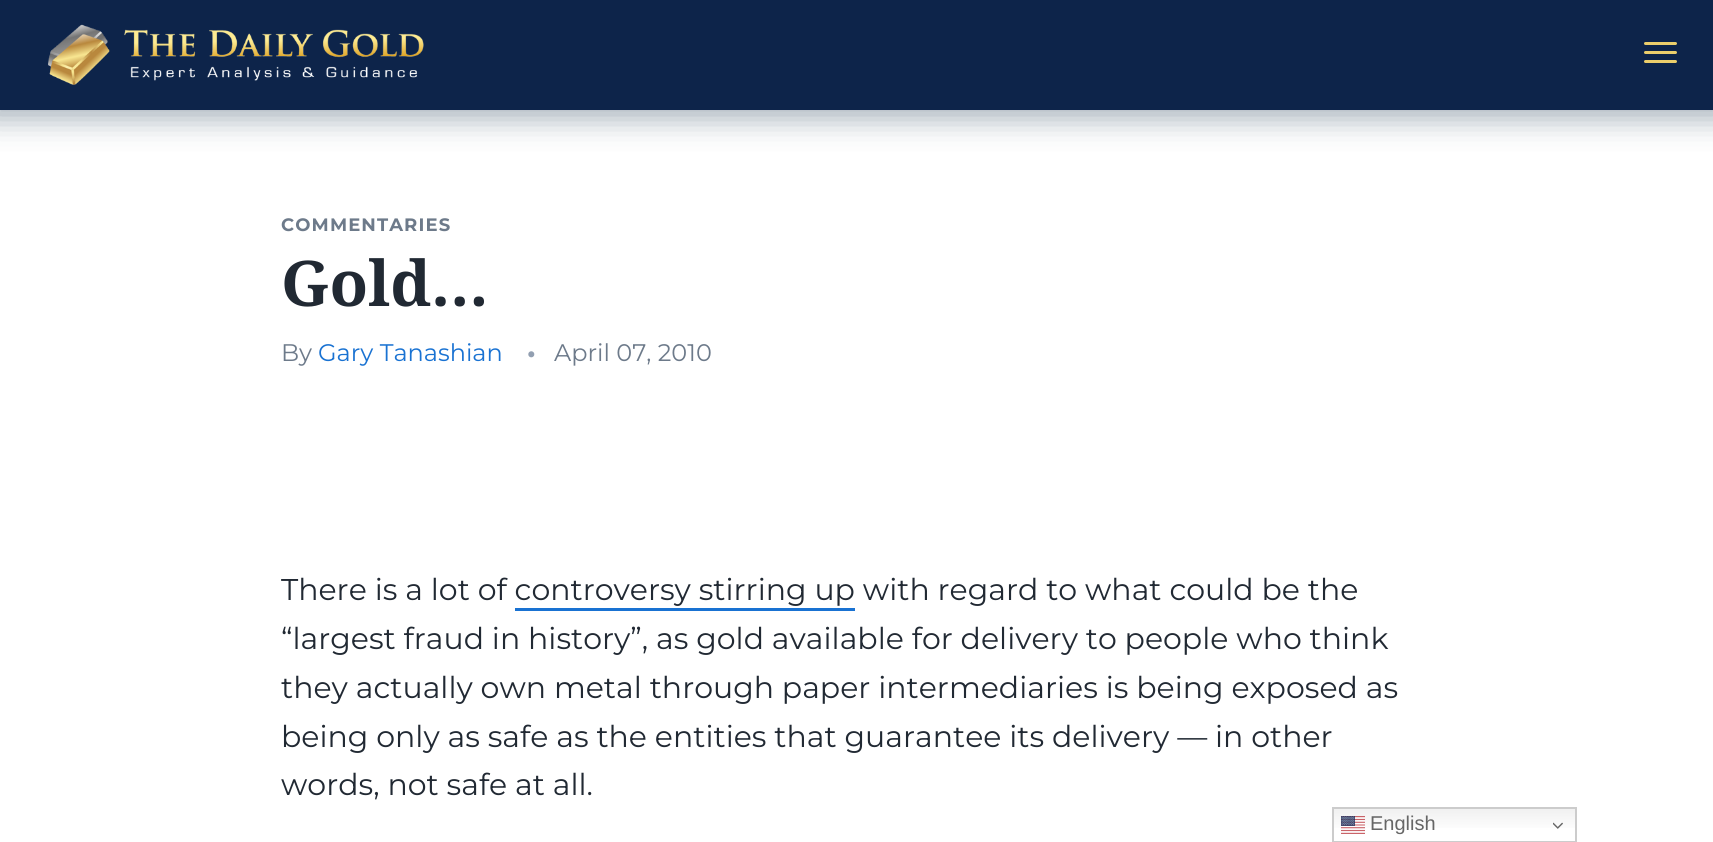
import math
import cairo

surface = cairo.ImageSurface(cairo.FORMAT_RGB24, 1713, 842)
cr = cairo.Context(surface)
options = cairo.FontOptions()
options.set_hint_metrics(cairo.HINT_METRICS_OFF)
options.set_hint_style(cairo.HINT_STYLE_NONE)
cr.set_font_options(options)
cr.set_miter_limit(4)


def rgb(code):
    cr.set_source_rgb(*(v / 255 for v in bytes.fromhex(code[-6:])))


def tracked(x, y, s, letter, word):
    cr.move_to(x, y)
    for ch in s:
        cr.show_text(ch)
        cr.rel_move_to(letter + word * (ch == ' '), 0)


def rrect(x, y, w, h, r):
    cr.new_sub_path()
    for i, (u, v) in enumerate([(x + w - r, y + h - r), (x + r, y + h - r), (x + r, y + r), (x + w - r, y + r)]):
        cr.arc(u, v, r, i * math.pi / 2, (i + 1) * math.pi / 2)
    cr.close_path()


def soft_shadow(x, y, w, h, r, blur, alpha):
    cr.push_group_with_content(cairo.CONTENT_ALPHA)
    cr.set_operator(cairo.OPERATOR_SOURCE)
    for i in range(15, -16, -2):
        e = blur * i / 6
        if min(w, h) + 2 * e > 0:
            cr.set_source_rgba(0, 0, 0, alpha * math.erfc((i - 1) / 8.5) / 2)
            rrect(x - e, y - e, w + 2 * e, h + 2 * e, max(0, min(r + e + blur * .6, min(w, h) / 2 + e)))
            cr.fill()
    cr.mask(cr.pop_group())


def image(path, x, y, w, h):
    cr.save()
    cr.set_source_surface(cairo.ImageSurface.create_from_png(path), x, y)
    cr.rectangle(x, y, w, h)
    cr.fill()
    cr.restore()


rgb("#ffffff")
cr.paint()
rgb("#02203c")
soft_shadow(-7, -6, 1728, 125, 0, 15, 0.35)
rgb("#0d244a")
cr.rectangle(0, 0, 1713, 110)
cr.fill()
image("img/1.png", 48, 24, 376, 61)
rgb("#ebce6b")
rrect(1644, 42, 33, 3, 1.5)
cr.fill()
rrect(1644, 51, 33, 3, 1.5)
cr.fill()
rrect(1644, 60, 33, 3, 1.5)
cr.fill()
rgb("#1972d2")
cr.rectangle(515, 608, 340, 3)
cr.fill()
gradient = cairo.LinearGradient(1454, 807, 1454, 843)
gradient.add_color_stop_rgba(0, 0.937, 0.937, 0.937, 1)
gradient.add_color_stop_rgba(0.7, 1, 1, 1, 1)
cr.set_source(gradient)
cr.rectangle(1334, 809, 241, 19)
cr.fill()
cr.rectangle(1333, 808, 243, 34)
rgb("#cccccc")
cr.stroke()
image("img/2.png", 1341, 816, 24, 18)
image("img/3.png", 1553, 822, 10, 7)
cr.select_font_face("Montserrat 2 Thin")
cr.set_font_size(18)
rgb("#6d7a8a")
tracked(281, 231, "COMMENTARIES", 1.1, 0)
cr.select_font_face("Noto Serif", cairo.FONT_SLANT_NORMAL, cairo.FONT_WEIGHT_BOLD)
cr.set_font_size(63)
rgb("#212933")
cr.move_to(281, 306)
cr.show_text("Gold…")
cr.select_font_face("Montserrat Thin")
cr.set_font_size(24)
rgb("#6d7a8a")
cr.move_to(281, 361)
cr.show_text("By")
rgb("#1972d2")
cr.move_to(318, 361)
cr.show_text("Gary Tanashian")
cr.select_font_face("Montserrat 2 Thin")
rgb("#929fb1")
cr.move_to(527, 361)
cr.show_text("•")
cr.select_font_face("Montserrat Thin")
rgb("#6d7a8a")
cr.move_to(554, 361)
cr.show_text("April 07, 2010")
cr.set_font_size(30)
rgb("#212933")
for x, y, s in [
    (281, 600, "There is a lot of controversy stirring up with regard to what could be the"),
    (281, 649, "“largest fraud in history”, as gold available for delivery to people who think"),
    (281, 698, "they actually own metal through paper intermediaries is being exposed as"),
    (281, 747, "being only as safe as the entities that guarantee its delivery — in other"),
    (281, 795, "words, not safe at all."),
]:
    cr.move_to(x, y)
    cr.show_text(s)
cr.select_font_face("Liberation Sans")
cr.set_font_size(20)
rgb("#666666")
cr.move_to(1370, 830)
cr.show_text("English")
surface.write_to_png("page.png")
